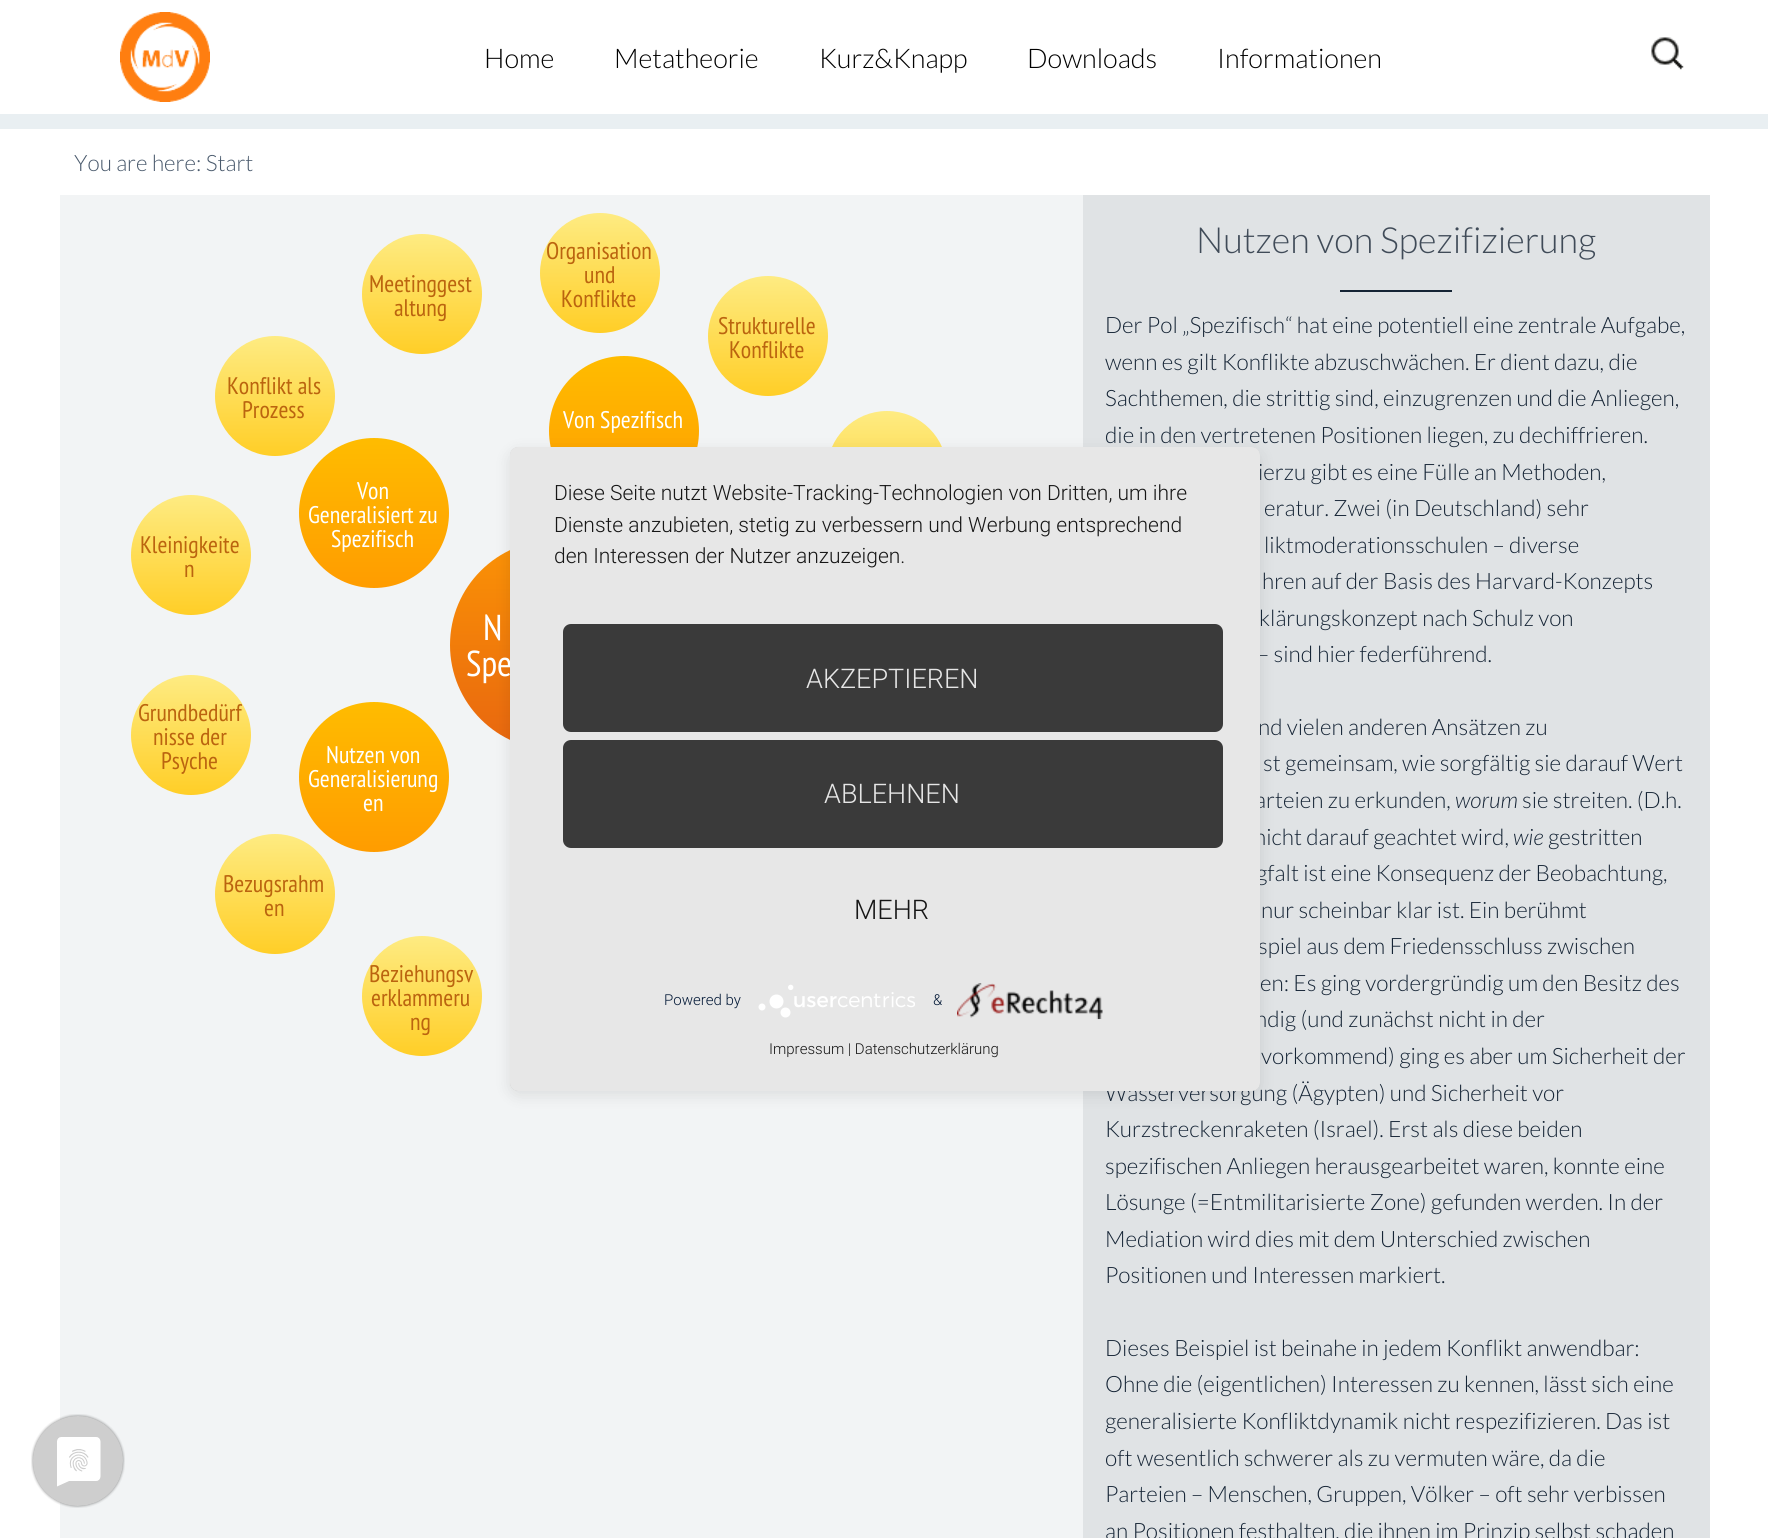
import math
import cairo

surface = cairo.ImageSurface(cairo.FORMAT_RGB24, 1768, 1538)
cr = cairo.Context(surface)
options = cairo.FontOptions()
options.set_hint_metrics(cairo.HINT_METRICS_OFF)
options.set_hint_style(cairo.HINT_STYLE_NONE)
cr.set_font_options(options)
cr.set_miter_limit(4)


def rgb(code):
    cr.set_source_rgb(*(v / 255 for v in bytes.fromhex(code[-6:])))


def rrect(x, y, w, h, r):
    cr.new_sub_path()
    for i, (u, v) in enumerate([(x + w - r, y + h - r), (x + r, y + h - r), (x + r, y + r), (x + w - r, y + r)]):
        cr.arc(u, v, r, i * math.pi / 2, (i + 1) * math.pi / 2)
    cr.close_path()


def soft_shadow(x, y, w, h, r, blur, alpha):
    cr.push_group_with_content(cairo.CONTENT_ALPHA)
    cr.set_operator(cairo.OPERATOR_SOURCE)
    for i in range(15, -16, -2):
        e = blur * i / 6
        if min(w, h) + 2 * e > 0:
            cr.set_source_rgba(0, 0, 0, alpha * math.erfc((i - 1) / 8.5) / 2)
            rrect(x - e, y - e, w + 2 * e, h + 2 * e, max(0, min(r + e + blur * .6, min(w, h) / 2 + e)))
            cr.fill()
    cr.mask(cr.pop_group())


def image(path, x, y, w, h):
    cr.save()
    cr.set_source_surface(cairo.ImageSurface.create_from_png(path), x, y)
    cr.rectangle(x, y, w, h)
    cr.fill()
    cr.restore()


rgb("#ffffff")
cr.paint()
rgb("#e9eff2")
cr.rectangle(0, 114, 1768, 15)
cr.fill()
image("img/1.png", 120, 12, 90, 90)
image("img/2.png", 1651, 37, 33, 33)
rgb("#f2f4f5")
cr.rectangle(60, 195, 1023, 1343)
cr.fill()
gradient = cairo.LinearGradient(422, 234, 422, 354)
gradient.add_color_stop_rgba(0, 0.996, 0.922, 0.51, 1)
gradient.add_color_stop_rgba(1, 1, 0.808, 0.153, 1)
cr.set_source(gradient)
cr.arc(422, 294, 60, 0, 2 * math.pi)
cr.fill()
gradient = cairo.LinearGradient(600, 213, 600, 333)
gradient.add_color_stop_rgba(0, 0.996, 0.922, 0.51, 1)
gradient.add_color_stop_rgba(1, 1, 0.808, 0.153, 1)
cr.set_source(gradient)
cr.arc(600, 273, 60, 0, 2 * math.pi)
cr.fill()
gradient = cairo.LinearGradient(768, 276, 768, 396)
gradient.add_color_stop_rgba(0, 0.996, 0.922, 0.51, 1)
gradient.add_color_stop_rgba(1, 1, 0.808, 0.153, 1)
cr.set_source(gradient)
cr.arc(768, 336, 60, 0, 2 * math.pi)
cr.fill()
gradient = cairo.LinearGradient(374, 438, 374, 588)
gradient.add_color_stop_rgba(0, 1, 0.737, 0, 1)
gradient.add_color_stop_rgba(1, 1, 0.612, 0, 1)
cr.set_source(gradient)
cr.arc(374, 513, 75, 0, 2 * math.pi)
cr.fill()
gradient = cairo.LinearGradient(275, 336, 275, 456)
gradient.add_color_stop_rgba(0, 0.996, 0.922, 0.51, 1)
gradient.add_color_stop_rgba(1, 1, 0.808, 0.153, 1)
cr.set_source(gradient)
cr.arc(275, 396, 60, 0, 2 * math.pi)
cr.fill()
gradient = cairo.LinearGradient(624, 356, 624, 506)
gradient.add_color_stop_rgba(0, 1, 0.737, 0, 1)
gradient.add_color_stop_rgba(1, 1, 0.612, 0, 1)
cr.set_source(gradient)
cr.arc(624, 431, 75, 0, 2 * math.pi)
cr.fill()
gradient = cairo.LinearGradient(887, 411, 887, 531)
gradient.add_color_stop_rgba(0, 0.996, 0.922, 0.51, 1)
gradient.add_color_stop_rgba(1, 1, 0.808, 0.153, 1)
cr.set_source(gradient)
cr.arc(887, 471, 60, 0, 2 * math.pi)
cr.fill()
gradient = cairo.LinearGradient(191, 495, 191, 615)
gradient.add_color_stop_rgba(0, 0.996, 0.922, 0.51, 1)
gradient.add_color_stop_rgba(1, 1, 0.808, 0.153, 1)
cr.set_source(gradient)
cr.arc(191, 555, 60, 0, 2 * math.pi)
cr.fill()
gradient = cairo.LinearGradient(555, 540, 555, 750)
gradient.add_color_stop_rgba(0, 0.984, 0.576, 0.02, 1)
gradient.add_color_stop_rgba(1, 0.91, 0.4, 0.059, 1)
cr.set_source(gradient)
cr.arc(555, 645, 105, 0, 2 * math.pi)
cr.fill()
gradient = cairo.LinearGradient(191, 675, 191, 795)
gradient.add_color_stop_rgba(0, 0.996, 0.922, 0.51, 1)
gradient.add_color_stop_rgba(1, 1, 0.808, 0.153, 1)
cr.set_source(gradient)
cr.arc(191, 735, 60, 0, 2 * math.pi)
cr.fill()
gradient = cairo.LinearGradient(374, 702, 374, 852)
gradient.add_color_stop_rgba(0, 1, 0.737, 0, 1)
gradient.add_color_stop_rgba(1, 1, 0.612, 0, 1)
cr.set_source(gradient)
cr.arc(374, 777, 75, 0, 2 * math.pi)
cr.fill()
gradient = cairo.LinearGradient(275, 834, 275, 954)
gradient.add_color_stop_rgba(0, 0.996, 0.922, 0.51, 1)
gradient.add_color_stop_rgba(1, 1, 0.808, 0.153, 1)
cr.set_source(gradient)
cr.arc(275, 894, 60, 0, 2 * math.pi)
cr.fill()
gradient = cairo.LinearGradient(422, 936, 422, 1056)
gradient.add_color_stop_rgba(0, 0.996, 0.922, 0.51, 1)
gradient.add_color_stop_rgba(1, 1, 0.808, 0.153, 1)
cr.set_source(gradient)
cr.arc(422, 996, 60, 0, 2 * math.pi)
cr.fill()
rgb("#e0e3e5")
cr.rectangle(1083, 195, 627, 1343)
cr.fill()
rgb("#152435")
cr.rectangle(1340, 290, 112, 2)
cr.fill()
rgb("#000000")
soft_shadow(510, 452, 750, 643, 8, 7.5, 0.1)
cr.save()
rrect(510, 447, 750, 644, 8)
cr.clip()
soft_shadow(510, 456, 750, 644, 0, 27, 0.3)
cr.restore()
image("img/5.png", 31, 1414, 94, 94)
cr.select_font_face("Lato Light")
cr.set_font_size(27)
rgb("#000000")
for x, y, s in [
    (484, 68, "Home"),
    (614, 68, "Metatheorie"),
    (819, 68, "Kurz&Knapp"),
    (1027, 68, "Downloads"),
    (1217, 68, "Informationen"),
]:
    cr.move_to(x, y)
    cr.show_text(s)
cr.set_font_size(22.5)
rgb("#49596c")
cr.move_to(74, 171)
cr.show_text("You are here: Start")
cr.select_font_face("PT Sans Narrow")
cr.set_font_size(24)
rgb("#bb640f")
for x, y, s in [
    (369, 292, "Meetinggest"),
    (394, 316, "altung"),
    (546, 259, "Organisation"),
    (584, 283, "und"),
    (561, 307, "Konflikte"),
    (718, 334, "Strukturelle"),
    (729, 358, "Konflikte"),
    (227, 394, "Konflikt als"),
    (242, 418, "Prozess"),
]:
    cr.move_to(x, y)
    cr.show_text(s)
rgb("#ffffff")
for x, y, s in [
    (357, 499, "Von"),
    (308, 523, "Generalisiert zu"),
    (331, 547, "Spezifisch"),
    (563, 428, "Von Spezifisch"),
]:
    cr.move_to(x, y)
    cr.show_text(s)
rgb("#bb640f")
cr.move_to(140, 553)
cr.show_text("Kleinigkeite")
cr.move_to(184, 577)
cr.show_text("n")
cr.set_font_size(36)
rgb("#ffffff")
cr.move_to(483, 640)
cr.show_text("N")
cr.move_to(466, 676)
cr.show_text("Spe")
cr.set_font_size(24)
rgb("#bb640f")
for x, y, s in [
    (138, 721, "Grundbedürf"),
    (153, 745, "nisse der"),
    (161, 769, "Psyche"),
]:
    cr.move_to(x, y)
    cr.show_text(s)
rgb("#ffffff")
for x, y, s in [
    (326, 763, "Nutzen von"),
    (308, 787, "Generalisierung"),
    (363, 811, "en"),
]:
    cr.move_to(x, y)
    cr.show_text(s)
rgb("#bb640f")
for x, y, s in [
    (223, 892, "Bezugsrahm"),
    (264, 916, "en"),
    (369, 982, "Beziehungsv"),
    (371, 1006, "erklammeru"),
    (410, 1030, "ng"),
]:
    cr.move_to(x, y)
    cr.show_text(s)
cr.select_font_face("Lato Light")
cr.set_font_size(36)
rgb("#404b58")
cr.move_to(1196, 253)
cr.show_text("Nutzen von Spezifizierung")
cr.set_font_size(22.5)
rgb("#152435")
for x, y, s in [
    (1105, 333, "Der Pol „Spezifisch“ hat eine potentiell eine zentrale Aufgabe,"),
    (1105, 370, "wenn es gilt Konflikte abzuschwächen. Er dient dazu, die"),
    (1105, 406, "Sachthemen, die strittig sind, einzugrenzen und die Anliegen,"),
    (1105, 443, "die in den vertretenen Positionen liegen, zu dechiffrieren."),
    (1258, 480, "ierzu gibt es eine Fülle an Methoden,"),
    (1264, 516, "eratur. Zwei (in Deutschland) sehr"),
    (1264, 553, "liktmoderationsschulen – diverse"),
    (1262, 589, "hren auf der Basis des Harvard-Konzepts"),
    (1259, 626, "klärungskonzept nach Schulz von"),
    (1257, 662, "– sind hier federführend."),
    (1258, 735, "nd vielen anderen Ansätzen zu"),
    (1263, 771, "st gemeinsam, wie sorgfältig sie darauf Wert"),
    (1255, 808, "arteien zu erkunden,"),
]:
    cr.move_to(x, y)
    cr.show_text(s)
cr.select_font_face("Lato Light", cairo.FONT_SLANT_ITALIC)
cr.move_to(1455, 808)
cr.show_text("worum")
cr.select_font_face("Lato Light")
cr.move_to(1522, 808)
cr.show_text("sie streiten. (D.h.")
cr.move_to(1254, 845)
cr.show_text("nicht darauf geachtet wird,")
cr.select_font_face("Lato Light", cairo.FONT_SLANT_ITALIC)
cr.move_to(1513, 845)
cr.show_text("wie")
cr.select_font_face("Lato Light")
for x, y, s in [
    (1548, 845, "gestritten"),
    (1256, 881, "gfalt ist eine Konsequenz der Beobachtung,"),
    (1261, 918, "nur scheinbar klar ist. Ein berühmt"),
    (1258, 954, "spiel aus dem Friedensschluss zwischen"),
    (1260, 991, "en: Es ging vordergründig um den Besitz des"),
    (1255, 1027, "ndig (und zunächst nicht in der"),
    (1261, 1064, "vorkommend) ging es aber um Sicherheit der"),
    (1105, 1101, "Wasserversorgung (Ägypten) und Sicherheit vor"),
    (1105, 1137, "Kurzstreckenraketen (Israel). Erst als diese beiden"),
    (1105, 1174, "spezifischen Anliegen herausgearbeitet waren, konnte eine"),
    (1105, 1210, "Lösunge (=Entmilitarisierte Zone) gefunden werden. In der"),
    (1105, 1247, "Mediation wird dies mit dem Unterschied zwischen"),
    (1105, 1283, "Positionen und Interessen markiert."),
    (1105, 1356, "Dieses Beispiel ist beinahe in jedem Konflikt anwendbar:"),
    (1105, 1392, "Ohne die (eigentlichen) Interessen zu kennen, lässt sich eine"),
    (1105, 1429, "generalisierte Konfliktdynamik nicht respezifizieren. Das ist"),
    (1105, 1466, "oft wesentlich schwerer als zu vermuten wäre, da die"),
    (1105, 1502, "Parteien – Menschen, Gruppen, Völker – oft sehr verbissen"),
    (1105, 1539, "an Positionen festhalten, die ihnen im Prinzip selbst schaden"),
]:
    cr.move_to(x, y)
    cr.show_text(s)
rgb("#e7e7e7")
rrect(510, 447, 750, 644, 8)
cr.fill()
cr.select_font_face("Roboto Light")
cr.set_font_size(21)
rgb("#161616")
for x, y, s in [
    (554, 500, "Diese Seite nutzt Website-Tracking-Technologien von Dritten, um ihre"),
    (554, 532, "Dienste anzubieten, stetig zu verbessern und Werbung entsprechend"),
    (554, 563, "den Interessen der Nutzer anzuzeigen."),
]:
    cr.move_to(x, y)
    cr.show_text(s)
rgb("#3a3a3a")
rrect(563, 624, 660, 108, 8)
cr.fill()
cr.set_font_size(27)
rgb("#e6e6e6")
cr.move_to(806, 688)
cr.show_text("AKZEPTIEREN")
rgb("#3a3a3a")
rrect(563, 740, 660, 108, 8)
cr.fill()
rgb("#e6e6e6")
cr.move_to(824, 803)
cr.show_text("ABLEHNEN")
rgb("#161616")
cr.move_to(854, 919)
cr.show_text("MEHR")
cr.set_font_size(15)
rgb("#021836")
cr.move_to(664, 1005)
cr.show_text("Powered by")
image("img/3.png", 758, 984, 157, 34)
cr.move_to(933, 1005)
cr.show_text("&")
image("img/4.png", 957, 983, 146, 37)
rgb("#161616")
cr.move_to(769, 1054)
cr.show_text("Impressum | Datenschutzerklärung")
surface.write_to_png("page.png")
